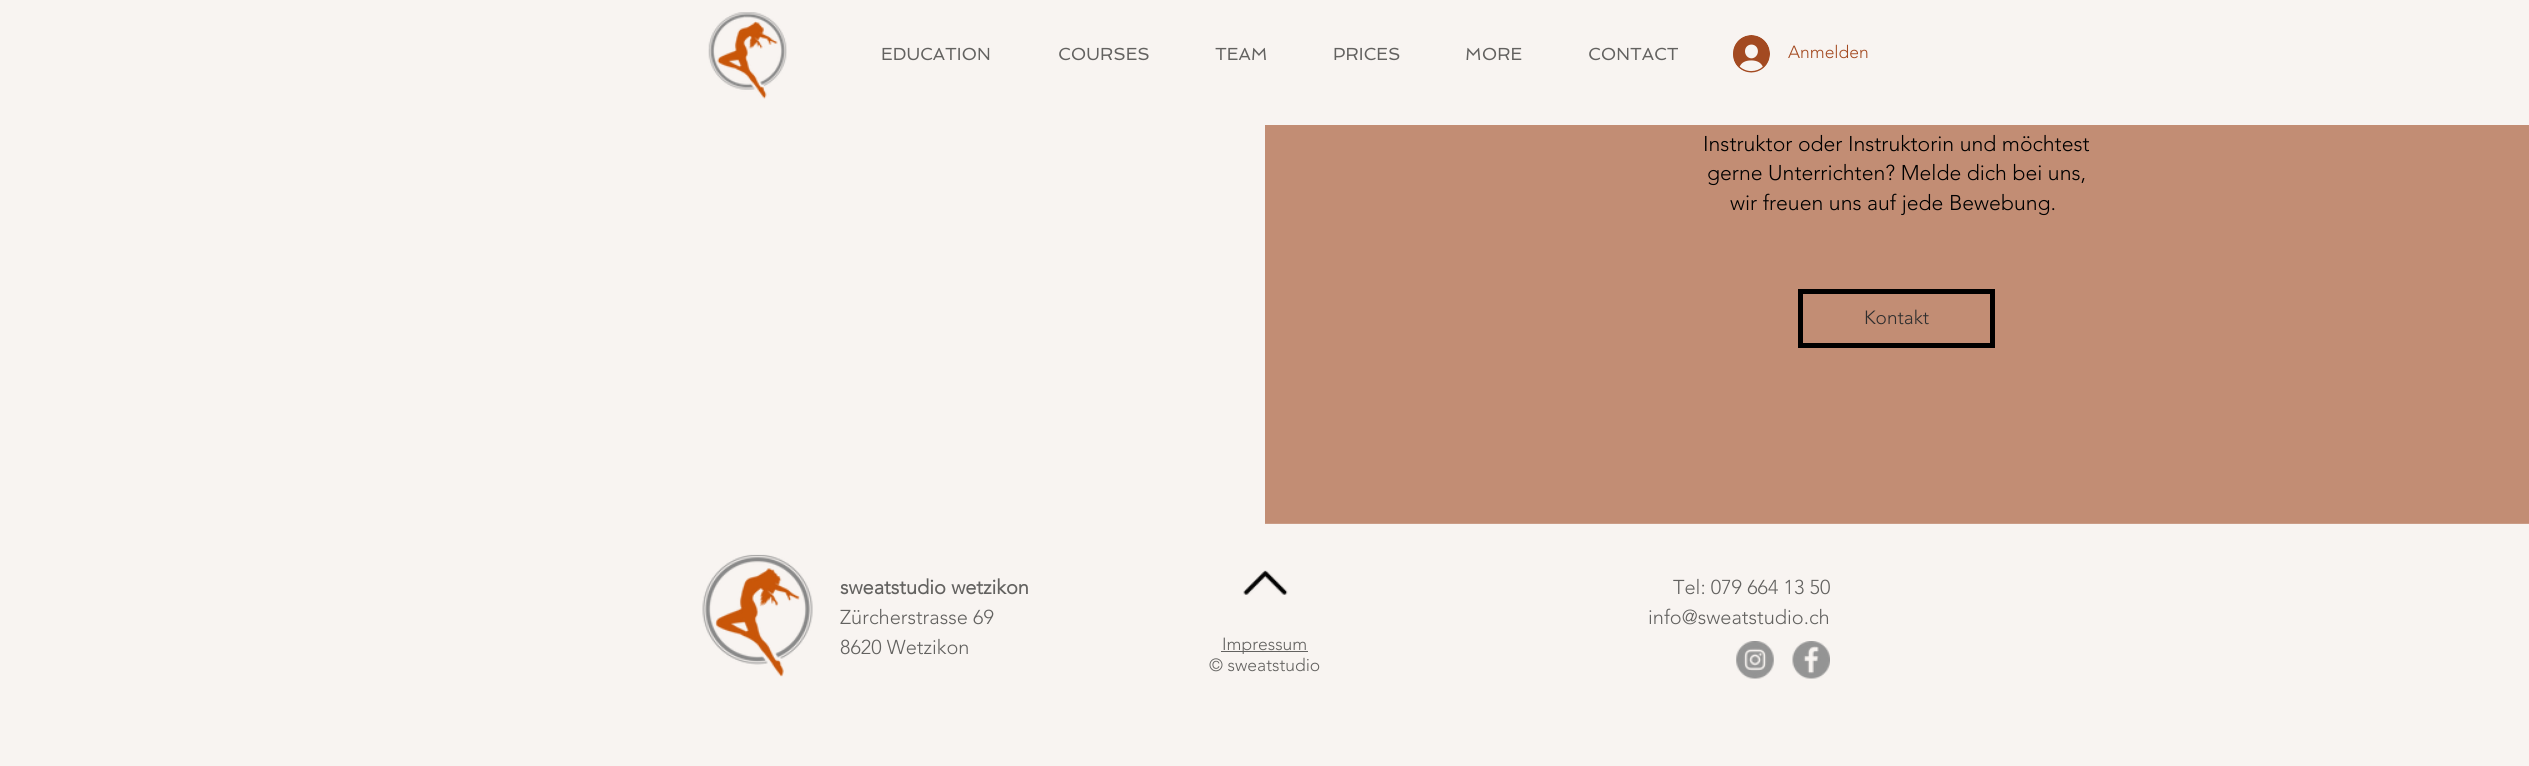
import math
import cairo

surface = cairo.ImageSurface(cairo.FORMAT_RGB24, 2529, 766)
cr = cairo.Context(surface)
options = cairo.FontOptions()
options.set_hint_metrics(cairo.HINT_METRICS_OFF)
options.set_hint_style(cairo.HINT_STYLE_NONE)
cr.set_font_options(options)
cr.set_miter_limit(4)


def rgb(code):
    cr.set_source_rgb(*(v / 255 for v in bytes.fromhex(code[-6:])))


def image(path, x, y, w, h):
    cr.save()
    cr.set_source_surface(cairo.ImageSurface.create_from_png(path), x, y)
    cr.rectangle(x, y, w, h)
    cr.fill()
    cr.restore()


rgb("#f8f4f1")
cr.paint()
image("img/1.png", 708, 12, 79, 87)
image("img/2.png", 1733, 35, 37, 38)
rgb("#c28d74")
cr.rectangle(1265, 125, 1264, 398)
cr.fill()
cr.rectangle(1800.5, 291.5, 192, 54)
rgb("#000000")
cr.set_line_width(5)
cr.stroke()
rgb("#ca9c86")
cr.rectangle(1265, 523, 1264, 1)
cr.fill()
image("img/3.png", 702, 554, 111, 123)
image("img/4.png", 1243, 570, 45, 25)
rgb("#636260")
cr.rectangle(1221, 651, 87, 1)
cr.fill()
image("img/5.png", 1736, 641, 38, 38)
image("img/6.png", 1792, 641, 38, 38)
cr.select_font_face("Spinnaker")
cr.set_font_size(17.5)
for x, y, s in [
    (881, 60, "EDUCATION"),
    (1058, 60, "COURSES"),
    (1215, 60, "TEAM"),
    (1333, 60, "PRICES"),
    (1465, 60, "MORE"),
    (1588, 60, "CONTACT"),
]:
    cr.move_to(x, y)
    cr.show_text(s)
cr.select_font_face("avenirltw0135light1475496 Light")
rgb("#a34a21")
cr.move_to(1788, 58)
cr.show_text("Anmelden")
cr.set_font_size(21.25)
rgb("#000000")
for x, y, s in [
    (1703, 151, "Instruktor oder Instruktorin und möchtest"),
    (1707, 180, "gerne Unterrichten? Melde dich bei uns,"),
    (1730, 210, "wir freuen uns auf jede Bewebung."),
]:
    cr.move_to(x, y)
    cr.show_text(s)
cr.set_font_size(19)
rgb("#2f2e2e")
cr.move_to(1864, 324)
cr.show_text("Kontakt")
cr.select_font_face("avenirltw0135light1475496", cairo.FONT_SLANT_NORMAL, cairo.FONT_WEIGHT_BOLD)
cr.set_font_size(20)
rgb("#636260")
cr.move_to(840, 594)
cr.show_text("sweatstudio wetzikon")
cr.select_font_face("avenirltw0135light1475496 Light")
for x, y, s in [
    (840, 624, "Zürcherstrasse 69"),
    (840, 654, "8620 Wetzikon"),
    (1673, 594, "Tel: 079 664 13 50"),
    (1648, 624, "info@sweatstudio.ch"),
]:
    cr.move_to(x, y)
    cr.show_text(s)
cr.set_font_size(17.5)
cr.move_to(1222, 650)
cr.show_text("Impressum")
cr.move_to(1209, 671)
cr.show_text("© sweatstudio")
surface.write_to_png("page.png")
